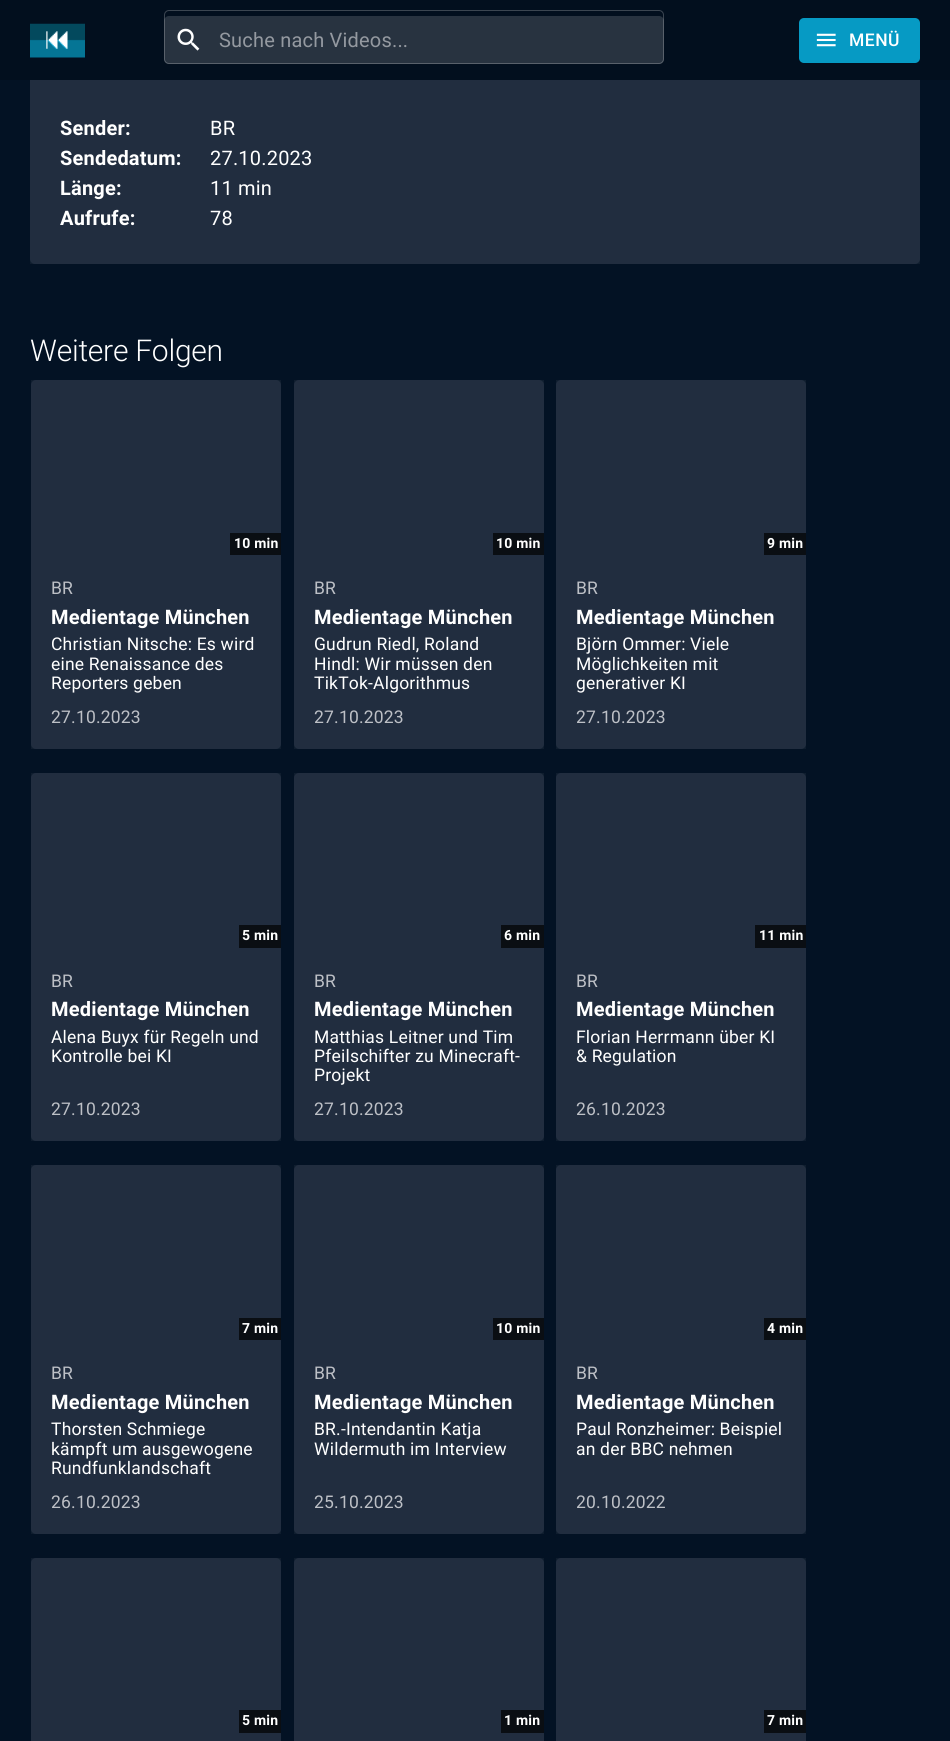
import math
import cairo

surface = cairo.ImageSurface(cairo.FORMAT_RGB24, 950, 1741)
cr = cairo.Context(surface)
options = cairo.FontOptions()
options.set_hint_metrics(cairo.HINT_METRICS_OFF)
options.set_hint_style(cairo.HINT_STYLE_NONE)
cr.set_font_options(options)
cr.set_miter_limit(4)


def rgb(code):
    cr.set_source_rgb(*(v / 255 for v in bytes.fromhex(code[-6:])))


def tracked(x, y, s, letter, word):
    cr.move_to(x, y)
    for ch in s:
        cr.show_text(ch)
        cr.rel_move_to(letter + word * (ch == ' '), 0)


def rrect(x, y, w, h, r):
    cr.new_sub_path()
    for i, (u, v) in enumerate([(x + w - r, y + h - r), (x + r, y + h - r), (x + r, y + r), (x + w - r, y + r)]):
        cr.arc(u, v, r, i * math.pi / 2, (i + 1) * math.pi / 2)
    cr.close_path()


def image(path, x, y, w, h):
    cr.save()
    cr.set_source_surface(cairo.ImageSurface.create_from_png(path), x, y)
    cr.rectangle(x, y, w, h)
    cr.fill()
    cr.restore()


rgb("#031224")
cr.paint()
rgb("#162336")
rrect(30, -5, 890, 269, 5)
cr.fill()
rgb("#020f1e")
cr.rectangle(0, 0, 950, 80)
cr.fill()
image("img/1.png", 30, 23, 55, 35)
rgb("#283340")
rrect(164, 16, 500, 48, 5)
cr.fill()
image("img/2.png", 177, 28, 23, 23)
rrect(164.5, 10.5, 499, 53, 4.5)
cr.set_source_rgba(1, 1, 1, 0.23)
cr.set_line_width(1)
cr.stroke()
rgb("#069ac4")
rrect(799, 18, 121, 45, 5)
cr.fill()
image("img/3.png", 816, 33, 20, 14)
cr.set_source_rgba(1, 1, 1, 0.05)
cr.rectangle(30, 80, 890, 184)
cr.fill()
rgb("#162336")
rrect(31, 380, 250, 369, 5)
cr.fill()
cr.set_source_rgba(1, 1, 1, 0.05)
cr.rectangle(31, 380, 250, 369)
cr.fill()
rgb("#0a0e13")
cr.rectangle(230, 533, 51, 22)
cr.fill()
rgb("#162336")
rrect(294, 380, 250, 369, 5)
cr.fill()
cr.set_source_rgba(1, 1, 1, 0.05)
cr.rectangle(294, 380, 250, 369)
cr.fill()
rgb("#0a0e13")
cr.rectangle(493, 533, 51, 22)
cr.fill()
rgb("#162336")
rrect(556, 380, 250, 369, 5)
cr.fill()
cr.set_source_rgba(1, 1, 1, 0.05)
cr.rectangle(556, 380, 250, 369)
cr.fill()
rgb("#0a0e13")
cr.rectangle(764, 533, 42, 22)
cr.fill()
rgb("#162336")
rrect(31, 773, 250, 368, 5)
cr.fill()
cr.set_source_rgba(1, 1, 1, 0.05)
cr.rectangle(31, 773, 250, 368)
cr.fill()
rgb("#0a0e13")
cr.rectangle(239, 925, 42, 23)
cr.fill()
rgb("#162336")
rrect(294, 773, 250, 368, 5)
cr.fill()
cr.set_source_rgba(1, 1, 1, 0.05)
cr.rectangle(294, 773, 250, 368)
cr.fill()
rgb("#0a0e13")
cr.rectangle(501, 925, 43, 23)
cr.fill()
rgb("#162336")
rrect(556, 773, 250, 368, 5)
cr.fill()
cr.set_source_rgba(1, 1, 1, 0.05)
cr.rectangle(556, 773, 250, 368)
cr.fill()
rgb("#0a0e13")
cr.rectangle(755, 925, 51, 23)
cr.fill()
rgb("#162336")
rrect(31, 1165, 250, 369, 5)
cr.fill()
cr.set_source_rgba(1, 1, 1, 0.05)
cr.rectangle(31, 1165, 250, 369)
cr.fill()
rgb("#0a0e13")
cr.rectangle(239, 1318, 42, 22)
cr.fill()
rgb("#162336")
rrect(294, 1165, 250, 369, 5)
cr.fill()
cr.set_source_rgba(1, 1, 1, 0.05)
cr.rectangle(294, 1165, 250, 369)
cr.fill()
rgb("#0a0e13")
cr.rectangle(493, 1318, 51, 22)
cr.fill()
rgb("#162336")
rrect(556, 1165, 250, 369, 5)
cr.fill()
cr.set_source_rgba(1, 1, 1, 0.05)
cr.rectangle(556, 1165, 250, 369)
cr.fill()
rgb("#0a0e13")
cr.rectangle(764, 1318, 42, 22)
cr.fill()
rgb("#162336")
rrect(31, 1558, 250, 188, 5)
cr.fill()
cr.set_source_rgba(1, 1, 1, 0.05)
cr.rectangle(31, 1558, 250, 183)
cr.fill()
rgb("#0a0e13")
cr.rectangle(239, 1710, 42, 23)
cr.fill()
rgb("#162336")
rrect(294, 1558, 250, 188, 5)
cr.fill()
cr.set_source_rgba(1, 1, 1, 0.05)
cr.rectangle(294, 1558, 250, 183)
cr.fill()
rgb("#0a0e13")
cr.rectangle(501, 1710, 43, 23)
cr.fill()
rgb("#162336")
rrect(556, 1558, 250, 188, 5)
cr.fill()
cr.set_source_rgba(1, 1, 1, 0.05)
cr.rectangle(556, 1558, 250, 183)
cr.fill()
rgb("#0a0e13")
cr.rectangle(764, 1710, 42, 23)
cr.fill()
cr.select_font_face("Roboto")
cr.set_font_size(20)
rgb("#9499a0")
tracked(219, 47, "Suche nach Videos...", 0.2, 0)
cr.select_font_face("Roboto Medium")
cr.set_font_size(17.5)
rgb("#ffffff")
tracked(849, 46, "MENÜ", 0.5, 0)
cr.select_font_face("Roboto", cairo.FONT_SLANT_NORMAL, cairo.FONT_WEIGHT_BOLD)
cr.set_font_size(20)
tracked(60, 135, "Sender:", 0.2, 0)
cr.select_font_face("Roboto")
tracked(210, 135, "BR", 0.2, 0)
cr.select_font_face("Roboto", cairo.FONT_SLANT_NORMAL, cairo.FONT_WEIGHT_BOLD)
tracked(60, 165, "Sendedatum:", 0.2, 0)
cr.select_font_face("Roboto")
tracked(210, 165, "27.10.2023", 0.2, 0)
cr.select_font_face("Roboto", cairo.FONT_SLANT_NORMAL, cairo.FONT_WEIGHT_BOLD)
tracked(60, 195, "Länge:", 0.2, 0)
cr.select_font_face("Roboto")
tracked(210, 195, "11 min", 0.2, 0)
cr.select_font_face("Roboto", cairo.FONT_SLANT_NORMAL, cairo.FONT_WEIGHT_BOLD)
tracked(60, 225, "Aufrufe:", 0.2, 0)
cr.select_font_face("Roboto")
tracked(210, 225, "78", 0.2, 0)
cr.select_font_face("Roboto Light")
cr.set_font_size(30)
tracked(30, 361, "Weitere Folgen", -0.25, 0)
cr.select_font_face("Roboto", cairo.FONT_SLANT_NORMAL, cairo.FONT_WEIGHT_BOLD)
cr.set_font_size(14)
tracked(234, 548, "10 min", 0.2, 0)
cr.select_font_face("Roboto")
cr.set_font_size(17.5)
rgb("#bdc0c6")
tracked(51, 594, "BR", 0.2, 0)
cr.select_font_face("Roboto", cairo.FONT_SLANT_NORMAL, cairo.FONT_WEIGHT_BOLD)
cr.set_font_size(20)
rgb("#ffffff")
tracked(51, 624, "Medientage München", 0.2, 0)
cr.select_font_face("Roboto")
cr.set_font_size(17.5)
for x, y, s in [
    (51, 650, "Christian Nitsche: Es wird"),
    (51, 670, "eine Renaissance des"),
    (51, 689, "Reporters geben"),
]:
    tracked(x, y, s, 0.2, 0)
rgb("#bdc0c6")
tracked(51, 723, "27.10.2023", 0.2, 0)
cr.select_font_face("Roboto", cairo.FONT_SLANT_NORMAL, cairo.FONT_WEIGHT_BOLD)
cr.set_font_size(14)
rgb("#ffffff")
tracked(496, 548, "10 min", 0.2, 0)
cr.select_font_face("Roboto")
cr.set_font_size(17.5)
rgb("#bdc0c6")
tracked(314, 594, "BR", 0.2, 0)
cr.select_font_face("Roboto", cairo.FONT_SLANT_NORMAL, cairo.FONT_WEIGHT_BOLD)
cr.set_font_size(20)
rgb("#ffffff")
tracked(314, 624, "Medientage München", 0.2, 0)
cr.select_font_face("Roboto")
cr.set_font_size(17.5)
for x, y, s in [
    (314, 650, "Gudrun Riedl, Roland"),
    (314, 670, "Hindl: Wir müssen den"),
    (314, 689, "TikTok-Algorithmus"),
]:
    tracked(x, y, s, 0.2, 0)
rgb("#bdc0c6")
tracked(314, 723, "27.10.2023", 0.2, 0)
cr.select_font_face("Roboto", cairo.FONT_SLANT_NORMAL, cairo.FONT_WEIGHT_BOLD)
cr.set_font_size(14)
rgb("#ffffff")
tracked(767, 548, "9 min", 0.2, 0)
cr.select_font_face("Roboto")
cr.set_font_size(17.5)
rgb("#bdc0c6")
tracked(576, 594, "BR", 0.2, 0)
cr.select_font_face("Roboto", cairo.FONT_SLANT_NORMAL, cairo.FONT_WEIGHT_BOLD)
cr.set_font_size(20)
rgb("#ffffff")
tracked(576, 624, "Medientage München", 0.2, 0)
cr.select_font_face("Roboto")
cr.set_font_size(17.5)
for x, y, s in [
    (576, 650, "Björn Ommer: Viele"),
    (576, 670, "Möglichkeiten mit"),
    (576, 689, "generativer KI"),
]:
    tracked(x, y, s, 0.2, 0)
rgb("#bdc0c6")
tracked(576, 723, "27.10.2023", 0.2, 0)
cr.select_font_face("Roboto", cairo.FONT_SLANT_NORMAL, cairo.FONT_WEIGHT_BOLD)
cr.set_font_size(14)
rgb("#ffffff")
tracked(242, 940, "5 min", 0.2, 0)
cr.select_font_face("Roboto")
cr.set_font_size(17.5)
rgb("#bdc0c6")
tracked(51, 987, "BR", 0.2, 0)
cr.select_font_face("Roboto", cairo.FONT_SLANT_NORMAL, cairo.FONT_WEIGHT_BOLD)
cr.set_font_size(20)
rgb("#ffffff")
tracked(51, 1016, "Medientage München", 0.2, 0)
cr.select_font_face("Roboto")
cr.set_font_size(17.5)
tracked(51, 1043, "Alena Buyx für Regeln und", 0.2, 0)
tracked(51, 1062, "Kontrolle bei KI", 0.2, 0)
rgb("#bdc0c6")
tracked(51, 1115, "27.10.2023", 0.2, 0)
cr.select_font_face("Roboto", cairo.FONT_SLANT_NORMAL, cairo.FONT_WEIGHT_BOLD)
cr.set_font_size(14)
rgb("#ffffff")
tracked(504, 940, "6 min", 0.2, 0)
cr.select_font_face("Roboto")
cr.set_font_size(17.5)
rgb("#bdc0c6")
tracked(314, 987, "BR", 0.2, 0)
cr.select_font_face("Roboto", cairo.FONT_SLANT_NORMAL, cairo.FONT_WEIGHT_BOLD)
cr.set_font_size(20)
rgb("#ffffff")
tracked(314, 1016, "Medientage München", 0.2, 0)
cr.select_font_face("Roboto")
cr.set_font_size(17.5)
for x, y, s in [
    (314, 1043, "Matthias Leitner und Tim"),
    (314, 1062, "Pfeilschifter zu Minecraft-"),
    (314, 1081, "Projekt"),
]:
    tracked(x, y, s, 0.2, 0)
rgb("#bdc0c6")
tracked(314, 1115, "27.10.2023", 0.2, 0)
cr.select_font_face("Roboto", cairo.FONT_SLANT_NORMAL, cairo.FONT_WEIGHT_BOLD)
cr.set_font_size(14)
rgb("#ffffff")
tracked(759, 940, "11 min", 0.2, 0)
cr.select_font_face("Roboto")
cr.set_font_size(17.5)
rgb("#bdc0c6")
tracked(576, 987, "BR", 0.2, 0)
cr.select_font_face("Roboto", cairo.FONT_SLANT_NORMAL, cairo.FONT_WEIGHT_BOLD)
cr.set_font_size(20)
rgb("#ffffff")
tracked(576, 1016, "Medientage München", 0.2, 0)
cr.select_font_face("Roboto")
cr.set_font_size(17.5)
tracked(576, 1043, "Florian Herrmann über KI", 0.2, 0)
tracked(576, 1062, "& Regulation", 0.2, 0)
rgb("#bdc0c6")
tracked(576, 1115, "26.10.2023", 0.2, 0)
cr.select_font_face("Roboto", cairo.FONT_SLANT_NORMAL, cairo.FONT_WEIGHT_BOLD)
cr.set_font_size(14)
rgb("#ffffff")
tracked(242, 1333, "7 min", 0.2, 0)
cr.select_font_face("Roboto")
cr.set_font_size(17.5)
rgb("#bdc0c6")
tracked(51, 1379, "BR", 0.2, 0)
cr.select_font_face("Roboto", cairo.FONT_SLANT_NORMAL, cairo.FONT_WEIGHT_BOLD)
cr.set_font_size(20)
rgb("#ffffff")
tracked(51, 1409, "Medientage München", 0.2, 0)
cr.select_font_face("Roboto")
cr.set_font_size(17.5)
for x, y, s in [
    (51, 1435, "Thorsten Schmiege"),
    (51, 1455, "kämpft um ausgewogene"),
    (51, 1474, "Rundfunklandschaft"),
]:
    tracked(x, y, s, 0.2, 0)
rgb("#bdc0c6")
tracked(51, 1508, "26.10.2023", 0.2, 0)
cr.select_font_face("Roboto", cairo.FONT_SLANT_NORMAL, cairo.FONT_WEIGHT_BOLD)
cr.set_font_size(14)
rgb("#ffffff")
tracked(496, 1333, "10 min", 0.2, 0)
cr.select_font_face("Roboto")
cr.set_font_size(17.5)
rgb("#bdc0c6")
tracked(314, 1379, "BR", 0.2, 0)
cr.select_font_face("Roboto", cairo.FONT_SLANT_NORMAL, cairo.FONT_WEIGHT_BOLD)
cr.set_font_size(20)
rgb("#ffffff")
tracked(314, 1409, "Medientage München", 0.2, 0)
cr.select_font_face("Roboto")
cr.set_font_size(17.5)
tracked(314, 1435, "BR.-Intendantin Katja", 0.2, 0)
tracked(314, 1455, "Wildermuth im Interview", 0.2, 0)
rgb("#bdc0c6")
tracked(314, 1508, "25.10.2023", 0.2, 0)
cr.select_font_face("Roboto", cairo.FONT_SLANT_NORMAL, cairo.FONT_WEIGHT_BOLD)
cr.set_font_size(14)
rgb("#ffffff")
tracked(767, 1333, "4 min", 0.2, 0)
cr.select_font_face("Roboto")
cr.set_font_size(17.5)
rgb("#bdc0c6")
tracked(576, 1379, "BR", 0.2, 0)
cr.select_font_face("Roboto", cairo.FONT_SLANT_NORMAL, cairo.FONT_WEIGHT_BOLD)
cr.set_font_size(20)
rgb("#ffffff")
tracked(576, 1409, "Medientage München", 0.2, 0)
cr.select_font_face("Roboto")
cr.set_font_size(17.5)
tracked(576, 1435, "Paul Ronzheimer: Beispiel", 0.2, 0)
tracked(576, 1455, "an der BBC nehmen", 0.2, 0)
rgb("#bdc0c6")
tracked(576, 1508, "20.10.2022", 0.2, 0)
cr.select_font_face("Roboto", cairo.FONT_SLANT_NORMAL, cairo.FONT_WEIGHT_BOLD)
cr.set_font_size(14)
rgb("#ffffff")
for x, y, s in [
    (242, 1725, "5 min"),
    (504, 1725, "1 min"),
    (767, 1725, "7 min"),
]:
    tracked(x, y, s, 0.2, 0)
surface.write_to_png("page.png")
